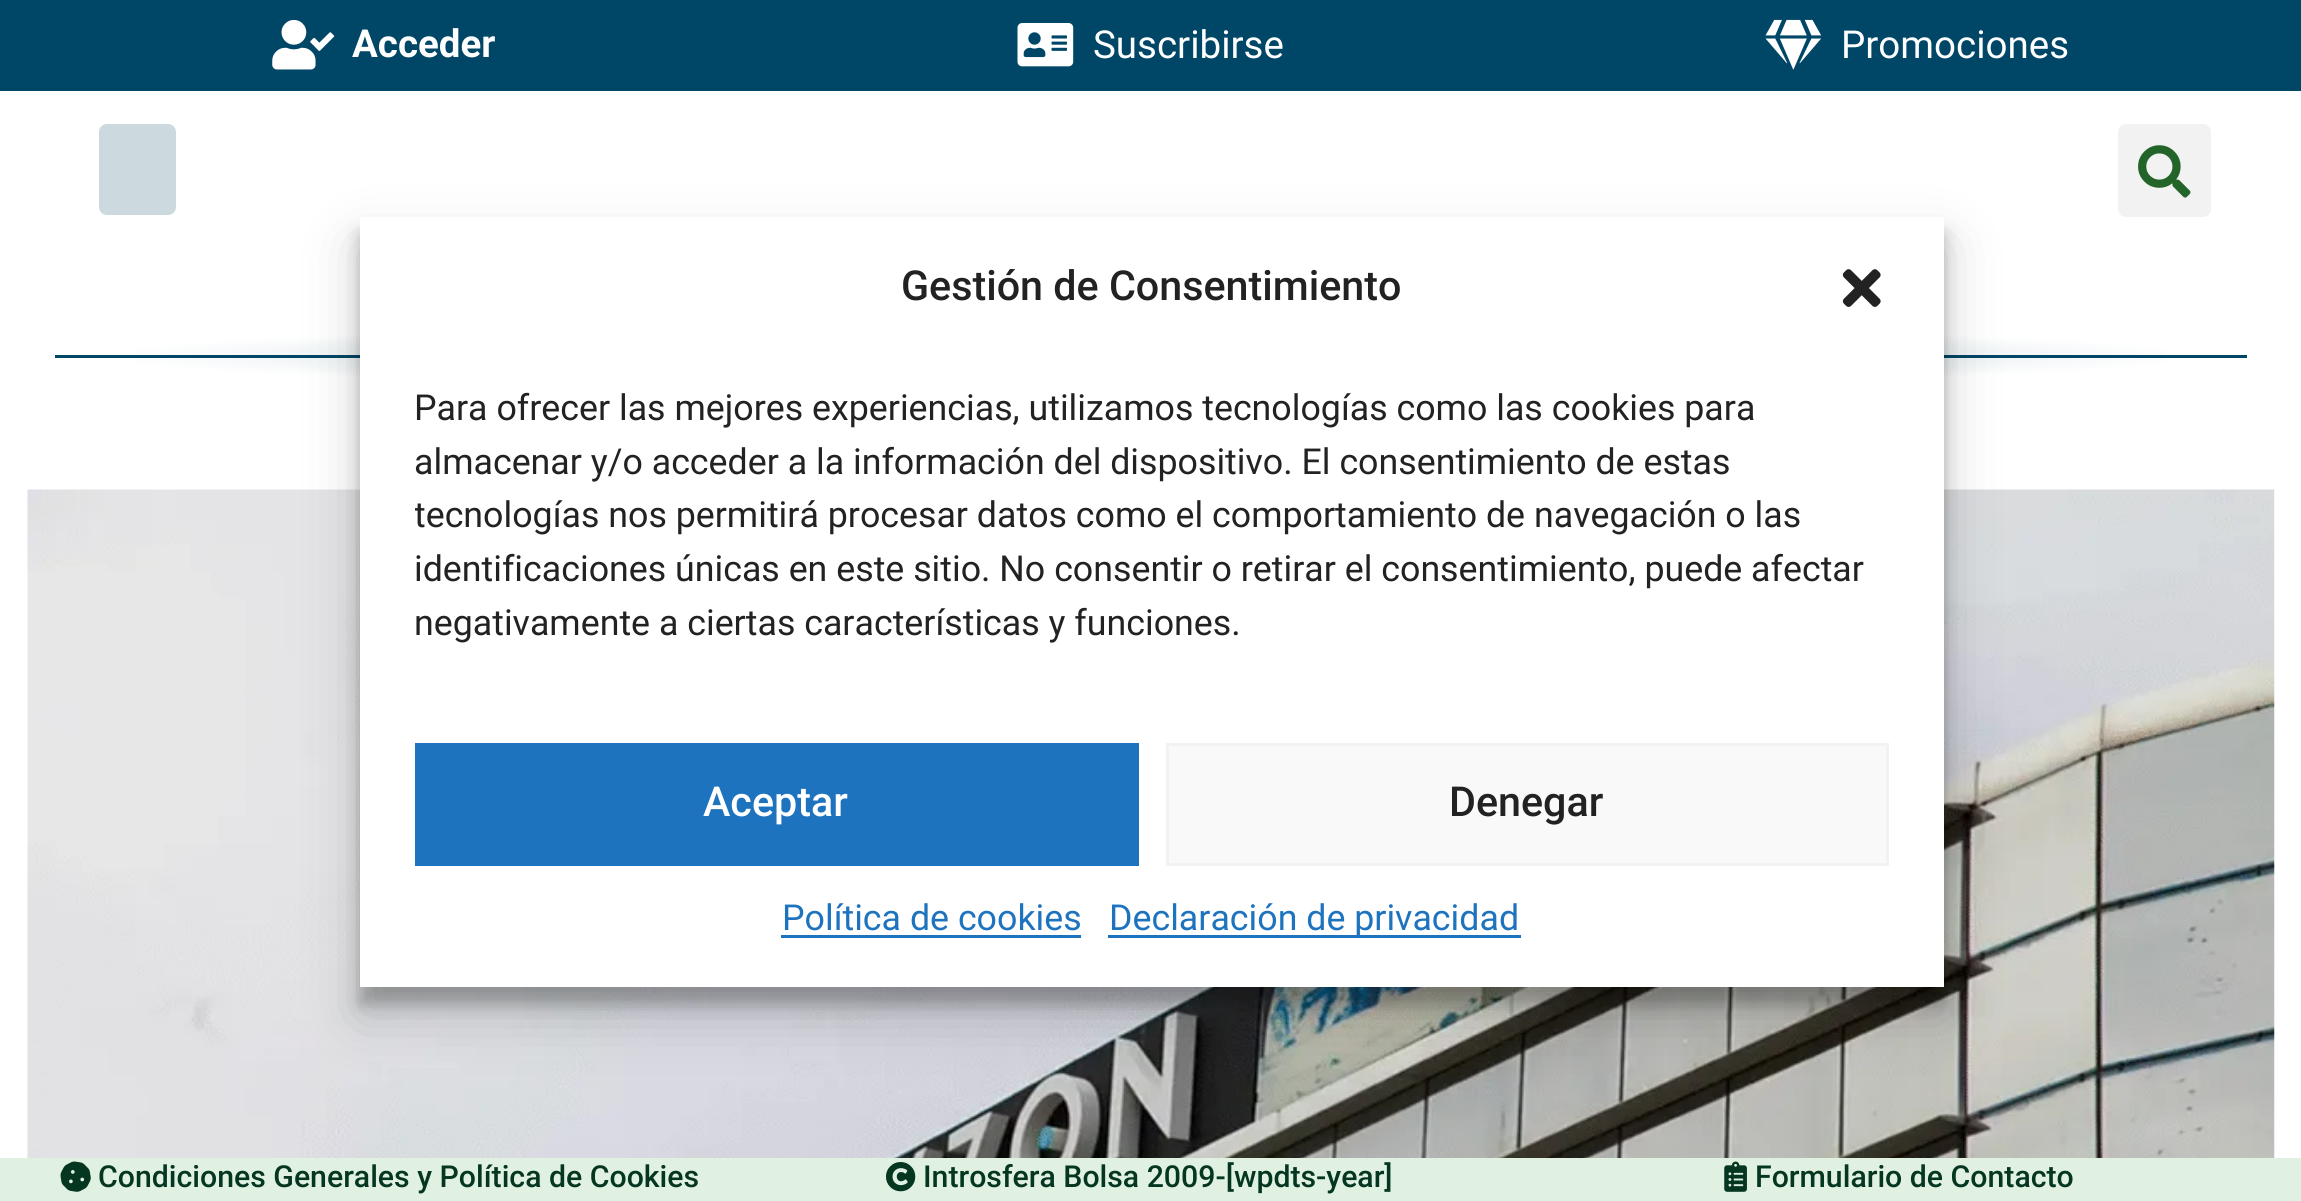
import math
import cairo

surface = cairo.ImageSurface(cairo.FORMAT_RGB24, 2301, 1201)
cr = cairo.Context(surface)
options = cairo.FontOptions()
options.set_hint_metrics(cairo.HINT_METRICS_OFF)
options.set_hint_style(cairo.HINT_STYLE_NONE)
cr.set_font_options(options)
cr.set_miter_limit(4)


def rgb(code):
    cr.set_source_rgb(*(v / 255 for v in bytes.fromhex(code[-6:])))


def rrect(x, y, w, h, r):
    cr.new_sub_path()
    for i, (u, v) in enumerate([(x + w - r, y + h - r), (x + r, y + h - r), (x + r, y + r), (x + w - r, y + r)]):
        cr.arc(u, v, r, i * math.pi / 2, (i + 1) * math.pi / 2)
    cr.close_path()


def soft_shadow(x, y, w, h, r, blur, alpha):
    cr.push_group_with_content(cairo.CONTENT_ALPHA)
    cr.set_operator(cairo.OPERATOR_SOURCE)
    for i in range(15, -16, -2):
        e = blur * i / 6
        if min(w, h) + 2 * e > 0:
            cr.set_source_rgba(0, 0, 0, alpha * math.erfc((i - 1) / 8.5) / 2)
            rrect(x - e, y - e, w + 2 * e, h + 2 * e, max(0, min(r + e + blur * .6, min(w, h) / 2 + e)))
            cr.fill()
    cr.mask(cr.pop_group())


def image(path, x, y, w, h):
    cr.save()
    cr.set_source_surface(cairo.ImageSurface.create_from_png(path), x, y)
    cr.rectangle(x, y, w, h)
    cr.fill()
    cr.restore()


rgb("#ffffff")
cr.paint()
rgb("#004666")
cr.rectangle(0, 0, 2301, 91)
cr.fill()
image("img/1.png", 272, 19, 63, 51)
image("img/2.png", 1017, 23, 57, 44)
image("img/3.png", 1765, 19, 57, 51)
rgb("#ccdae0")
rrect(99, 124, 77, 91, 8)
cr.fill()
rgb("#f2f2f2")
rrect(2118, 124, 93, 93, 8)
cr.fill()
image("img/4.png", 2138, 145, 53, 53)
gradient = cairo.RadialGradient(0, 0, 0, 0, 0, 1)
gradient.set_matrix(cairo.Matrix(1 / 1589, 0, 0, 1 / 49, -1 * 1151 / 1589, -1 * 356 / 49))
gradient.add_color_stop_rgba(0.15, 0.8, 0.855, 0.878, 1)
gradient.add_color_stop_rgba(0.66, 1, 1, 1, 1)
cr.set_source(gradient)
cr.rectangle(136, 325, 2030, 62)
cr.fill()
rgb("#004666")
cr.rectangle(55, 355, 2192, 3)
cr.fill()
image("img/6.png", 27, 489, 2248, 669)
rgb("#000000")
soft_shadow(360, 234, 1584, 770, 0, 8, 0.23)
soft_shadow(360, 245, 1584, 770, 0, 27.5, 0.19)
rgb("#ffffff")
cr.rectangle(360, 217, 1584, 770)
cr.fill()
image("img/5.png", 1842, 269, 39, 38)
rgb("#1e73be")
cr.rectangle(415, 743, 724, 123)
cr.fill()
rgb("#f9f9f9")
cr.rectangle(1167.5, 744.5, 720, 120)
cr.fill_preserve()
rgb("#f2f2f2")
cr.set_line_width(3)
cr.stroke()
for x, y, w, h, color in [
    (781, 935, 300, 3, "#1e73be"),
    (1108, 935, 413, 3, "#1e73be"),
    (0, 1158, 2301, 43, "#e0f0e1"),
]:
    rgb(color)
    cr.rectangle(x, y, w, h)
    cr.fill()
image("img/7.png", 60, 1161, 31, 31)
image("img/8.png", 886, 1162, 30, 30)
image("img/9.png", 1724, 1161, 23, 31)
cr.select_font_face("Roboto", cairo.FONT_SLANT_NORMAL, cairo.FONT_WEIGHT_BOLD)
cr.set_font_size(38.5)
rgb("#ffffff")
cr.move_to(352, 57)
cr.show_text("Acceder")
cr.select_font_face("Roboto")
cr.move_to(1093, 58)
cr.show_text("Suscribirse")
cr.move_to(1841, 58)
cr.show_text("Promociones")
cr.select_font_face("Roboto Medium")
cr.set_font_size(41.25)
rgb("#222222")
cr.move_to(901, 300)
cr.show_text("Gestión de Consentimiento")
cr.select_font_face("Roboto")
cr.set_font_size(35.75)
cr.move_to(414, 420)
cr.show_text("Para ofrecer las mejores experiencias, utilizamos tecnologías como las cookies para")
cr.move_to(414, 474)
cr.show_text("almacenar y/o acceder a la información del dispositivo. El consentimiento de estas")
cr.save()
cr.rectangle(415, 382, 1474, 284)
cr.clip()
cr.move_to(414, 527)
cr.show_text("tecnologías nos permitirá procesar datos como el comportamiento de navegación o las")
cr.restore()
cr.move_to(414, 581)
cr.show_text("identificaciones únicas en este sitio. No consentir o retirar el consentimiento, puede afectar")
cr.move_to(414, 635)
cr.show_text("negativamente a ciertas características y funciones.")
cr.select_font_face("Roboto Medium")
cr.set_font_size(41.25)
rgb("#ffffff")
cr.move_to(703, 816)
cr.show_text("Aceptar")
rgb("#222222")
cr.move_to(1449, 816)
cr.show_text("Denegar")
cr.select_font_face("Roboto")
cr.set_font_size(35.75)
rgb("#1e73be")
cr.move_to(782, 930)
cr.show_text("Política de cookies")
cr.move_to(1109, 930)
cr.show_text("Declaración de privacidad")
cr.select_font_face("Roboto Medium")
cr.set_font_size(30.25)
rgb("#043620")
for x, y, s in [
    (98, 1187, "Condiciones Generales y Política de Cookies"),
    (923, 1187, "Introsfera Bolsa 2009-[wpdts-year]"),
    (1755, 1187, "Formulario de Contacto"),
]:
    cr.move_to(x, y)
    cr.show_text(s)
surface.write_to_png("page.png")
